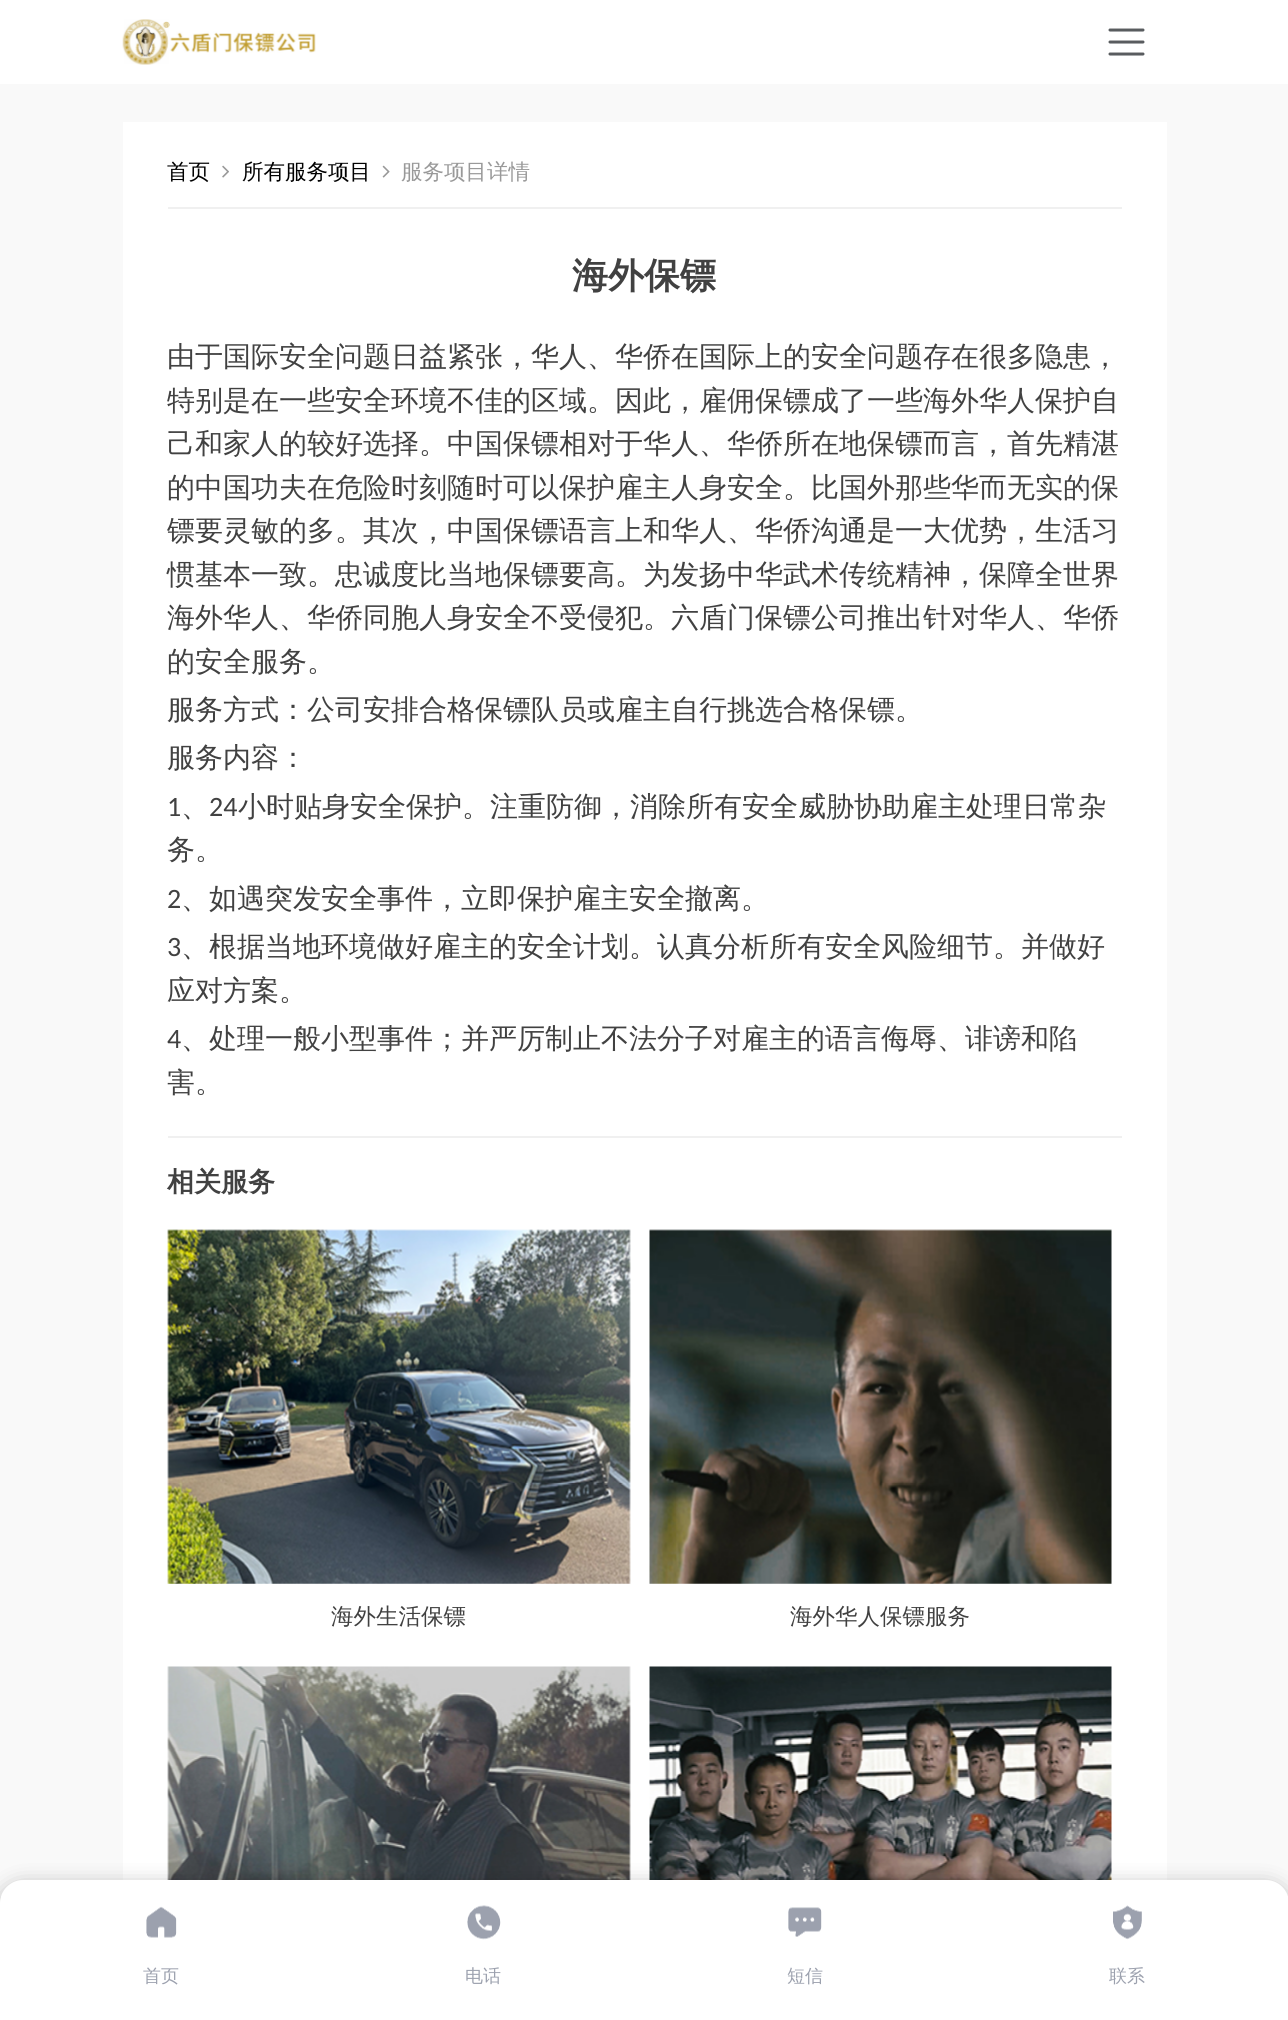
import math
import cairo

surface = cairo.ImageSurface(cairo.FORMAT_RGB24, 1288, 2020)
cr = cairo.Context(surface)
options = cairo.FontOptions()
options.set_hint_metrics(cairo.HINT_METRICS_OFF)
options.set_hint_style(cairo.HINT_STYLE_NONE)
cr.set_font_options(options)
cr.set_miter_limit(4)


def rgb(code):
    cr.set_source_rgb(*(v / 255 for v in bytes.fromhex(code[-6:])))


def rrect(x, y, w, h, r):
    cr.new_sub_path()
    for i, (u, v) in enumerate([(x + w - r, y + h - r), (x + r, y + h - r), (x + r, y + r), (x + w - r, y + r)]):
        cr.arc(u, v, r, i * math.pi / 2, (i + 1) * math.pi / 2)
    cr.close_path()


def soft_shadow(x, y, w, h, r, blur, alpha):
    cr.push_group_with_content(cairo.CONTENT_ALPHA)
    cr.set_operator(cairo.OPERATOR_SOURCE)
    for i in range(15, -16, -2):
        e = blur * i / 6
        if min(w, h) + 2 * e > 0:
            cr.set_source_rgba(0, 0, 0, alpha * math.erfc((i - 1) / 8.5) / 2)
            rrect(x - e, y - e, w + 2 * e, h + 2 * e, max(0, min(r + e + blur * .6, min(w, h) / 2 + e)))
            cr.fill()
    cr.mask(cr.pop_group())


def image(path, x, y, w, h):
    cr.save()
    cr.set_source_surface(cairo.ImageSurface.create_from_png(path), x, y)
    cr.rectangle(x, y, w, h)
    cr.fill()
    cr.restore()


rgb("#f9f9f9")
cr.paint()
rgb("#ffffff")
cr.rectangle(0, 0, 1288, 84)
cr.fill()
image("img/1.png", 122, 19, 194, 46)
cr.new_path()
cr.move_to(1110, 30)
cr.line_to(1143, 30)
cr.move_to(1110, 42)
cr.line_to(1143, 42)
cr.move_to(1110, 54)
cr.line_to(1143, 54)
rgb("#595c5f")
cr.set_line_width(3)
cr.set_line_cap(cairo.LINE_CAP_ROUND)
cr.stroke()
rgb("#ffffff")
cr.rectangle(123, 122, 1044, 1758)
cr.fill()
rgb("#f0f0f0")
cr.rectangle(168, 207, 954, 2)
cr.fill()
image("img/2.png", 222, 165, 7, 13)
image("img/3.png", 382, 165, 8, 13)
cr.rectangle(168, 1136, 954, 2)
cr.fill()
image("img/4.png", 167, 1229, 464, 355)
image("img/5.png", 649, 1229, 463, 355)
image("img/6.png", 167, 1666, 464, 214)
image("img/7.png", 649, 1666, 463, 214)
rgb("#000000")
soft_shadow(0, 1887, 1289, 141, 23, 11, 0.35)
rgb("#ffffff")
cr.new_path()
cr.move_to(23, 1880)
cr.line_to(1266, 1880)
cr.curve_to(1278.5, 1880, 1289, 1890.5, 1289, 1903)
cr.line_to(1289, 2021)
cr.line_to(0, 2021)
cr.line_to(0, 1903)
cr.curve_to(0, 1890.5, 10.5, 1880, 23, 1880)
cr.close_path()
cr.fill()
image("img/8.png", 146, 1906, 31, 32)
image("img/9.png", 467, 1905, 34, 35)
image("img/10.png", 788, 1907, 34, 30)
image("img/11.png", 1113, 1905, 29, 35)
cr.select_font_face("WenQuanYi Zen Hei Medium")
cr.set_font_size(21.5)
rgb("#000000")
cr.move_to(167, 179)
cr.show_text("首页")
cr.move_to(242, 179)
cr.show_text("所有服务项目")
rgb("#999999")
cr.move_to(401, 179)
cr.show_text("服务项目详情")
cr.select_font_face("WenQuanYi Zen Hei", cairo.FONT_SLANT_NORMAL, cairo.FONT_WEIGHT_BOLD)
cr.set_font_size(36)
rgb("#414141")
cr.move_to(572, 288)
cr.show_text("海外保镖")
cr.select_font_face("WenQuanYi Zen Hei Medium")
cr.set_font_size(28)
for x, y, s in [
    (167, 366, "由于国际安全问题日益紧张，华人、华侨在国际上的安全问题存在很多隐患，"),
    (167, 410, "特别是在一些安全环境不佳的区域。因此，雇佣保镖成了一些海外华人保护自"),
    (167, 453, "己和家人的较好选择。中国保镖相对于华人、华侨所在地保镖而言，首先精湛"),
    (167, 497, "的中国功夫在危险时刻随时可以保护雇主人身安全。比国外那些华而无实的保"),
    (167, 540, "镖要灵敏的多。其次，中国保镖语言上和华人、华侨沟通是一大优势，生活习"),
    (167, 584, "惯基本一致。忠诚度比当地保镖要高。为发扬中华武术传统精神，保障全世界"),
    (167, 627, "海外华人、华侨同胞人身安全不受侵犯。六盾门保镖公司推出针对华人、华侨"),
    (167, 671, "的安全服务。"),
    (167, 719, "服务方式：公司安排合格保镖队员或雇主自行挑选合格保镖。"),
    (167, 767, "服务内容："),
]:
    cr.move_to(x, y)
    cr.show_text(s)
cr.select_font_face("Carlito")
cr.move_to(167, 816)
cr.show_text("1")
cr.select_font_face("WenQuanYi Zen Hei Medium")
cr.move_to(181, 816)
cr.show_text("、")
cr.select_font_face("Carlito")
cr.move_to(209, 816)
cr.show_text("24")
cr.select_font_face("WenQuanYi Zen Hei Medium")
cr.move_to(238, 816)
cr.show_text("小时贴身安全保护。注重防御，消除所有安全威胁协助雇主处理日常杂")
cr.move_to(167, 859)
cr.show_text("务。")
cr.select_font_face("Carlito")
cr.move_to(167, 908)
cr.show_text("2")
cr.select_font_face("WenQuanYi Zen Hei Medium")
cr.move_to(181, 908)
cr.show_text("、如遇突发安全事件，立即保护雇主安全撤离。")
cr.select_font_face("Carlito")
cr.move_to(167, 956)
cr.show_text("3")
cr.select_font_face("WenQuanYi Zen Hei Medium")
cr.move_to(181, 956)
cr.show_text("、根据当地环境做好雇主的安全计划。认真分析所有安全风险细节。并做好")
cr.move_to(167, 1000)
cr.show_text("应对方案。")
cr.select_font_face("Carlito")
cr.move_to(167, 1048)
cr.show_text("4")
cr.select_font_face("WenQuanYi Zen Hei Medium")
cr.move_to(181, 1048)
cr.show_text("、处理一般小型事件；并严厉制止不法分子对雇主的语言侮辱、诽谤和陷")
cr.move_to(167, 1092)
cr.show_text("害。")
cr.select_font_face("WenQuanYi Zen Hei", cairo.FONT_SLANT_NORMAL, cairo.FONT_WEIGHT_BOLD)
cr.set_font_size(27)
cr.move_to(167, 1191)
cr.show_text("相关服务")
cr.select_font_face("WenQuanYi Zen Hei Medium")
cr.set_font_size(22.5)
cr.move_to(331, 1624)
cr.show_text("海外生活保镖")
cr.move_to(790, 1624)
cr.show_text("海外华人保镖服务")
cr.set_font_size(18)
rgb("#9ca1ae")
for x, y, s in [
    (143, 1982, "首页"),
    (465, 1982, "电话"),
    (787, 1982, "短信"),
    (1109, 1982, "联系"),
]:
    cr.move_to(x, y)
    cr.show_text(s)
surface.write_to_png("page.png")
